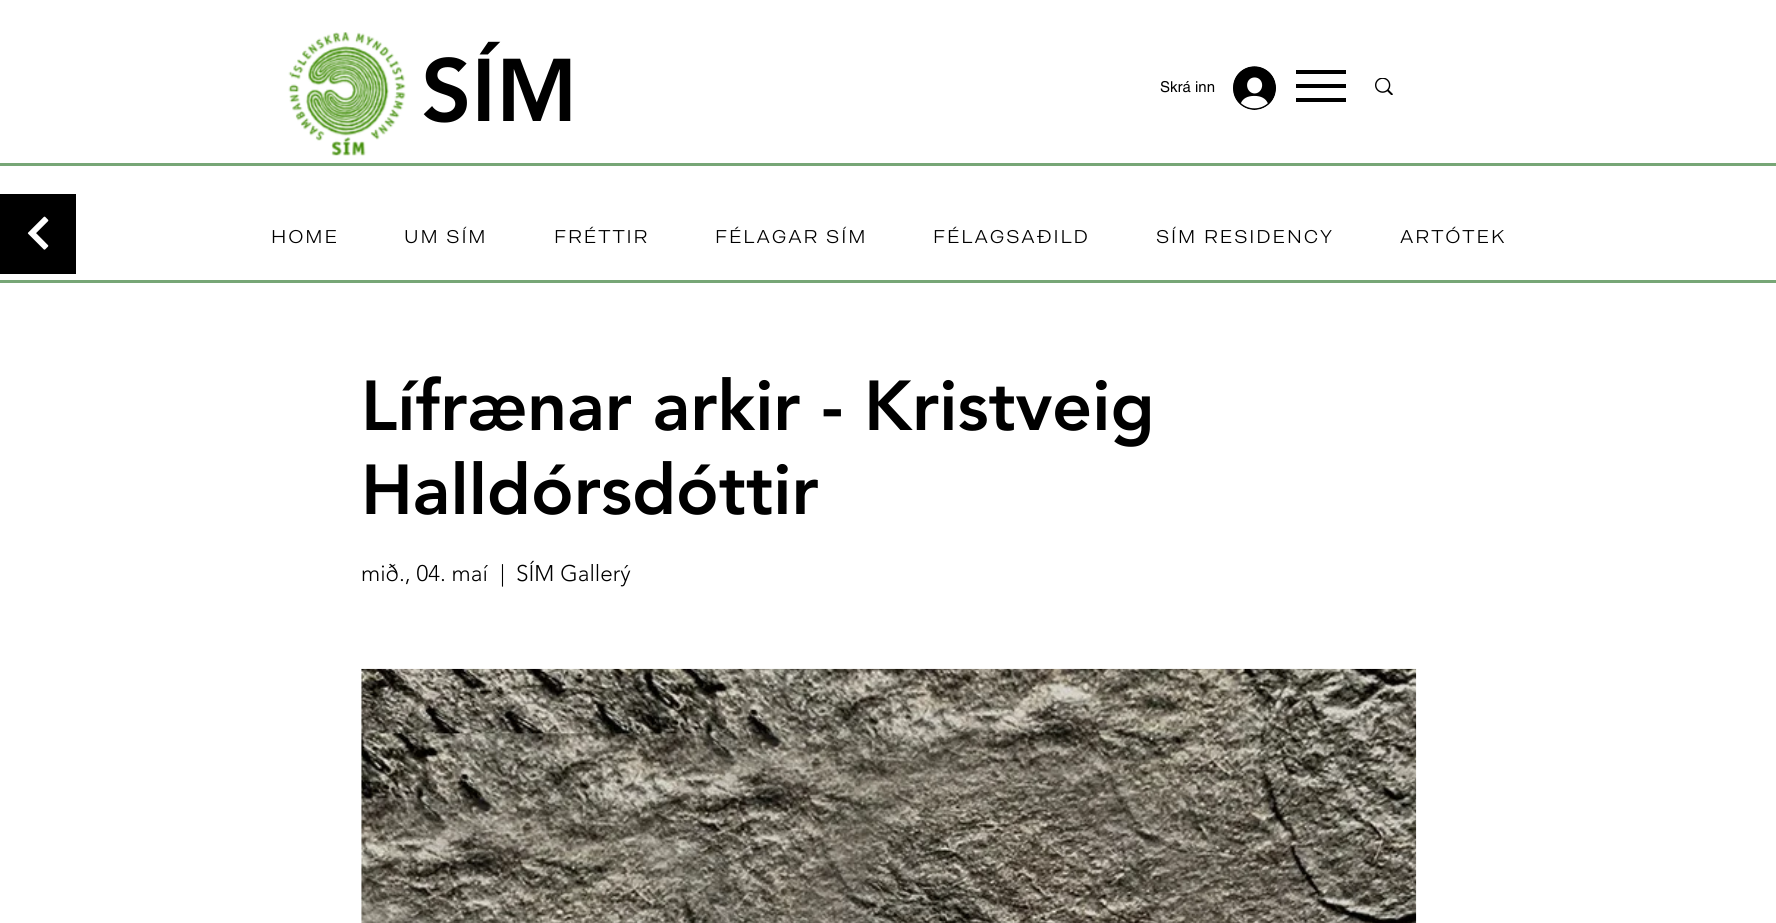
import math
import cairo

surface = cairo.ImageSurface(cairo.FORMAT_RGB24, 1776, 923)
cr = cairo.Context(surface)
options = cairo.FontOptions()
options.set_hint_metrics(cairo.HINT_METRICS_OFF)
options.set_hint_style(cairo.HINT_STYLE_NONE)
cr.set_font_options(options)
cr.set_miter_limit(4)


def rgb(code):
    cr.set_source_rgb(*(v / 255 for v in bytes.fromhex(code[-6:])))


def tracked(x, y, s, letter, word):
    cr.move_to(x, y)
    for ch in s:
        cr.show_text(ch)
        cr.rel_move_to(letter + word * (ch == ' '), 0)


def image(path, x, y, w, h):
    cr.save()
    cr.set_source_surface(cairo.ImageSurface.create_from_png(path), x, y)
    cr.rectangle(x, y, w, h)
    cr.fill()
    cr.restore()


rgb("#ffffff")
cr.paint()
image("img/1.png", 288, 32, 118, 124)
image("img/2.png", 1233, 66, 43, 44)
for x, y, w, h, color in [
    (1296, 98, 50, 4, "#000000"),
    (1296, 70, 50, 4, "#000000"),
    (1296, 84, 50, 4, "#000000"),
]:
    rgb(color)
    cr.rectangle(x, y, w, h)
    cr.fill()
image("img/3.png", 1375, 78, 18, 17)
for x, y, w, h, color in [
    (0, 163, 1776, 3, "#77a676"),
    (0, 280, 1776, 3, "#77a676"),
    (0, 194, 76, 80, "#000000"),
]:
    rgb(color)
    cr.rectangle(x, y, w, h)
    cr.fill()
image("img/4.png", 27, 216, 22, 34)
image("img/5.png", 361, 668, 1056, 255)
cr.select_font_face("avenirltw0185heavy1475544 Black")
cr.set_font_size(88)
cr.move_to(421, 121)
cr.show_text("SÍM")
cr.select_font_face("helvetica")
cr.set_font_size(15)
cr.move_to(1160, 92)
cr.show_text("Skrá inn")
cr.select_font_face("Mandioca")
cr.set_font_size(18.75)
for x, y, s in [
    (271, 243, "HOME"),
    (404, 243, "UM SÍM"),
    (554, 243, "FRÉTTIR"),
    (715, 243, "FÉLAGAR SÍM"),
    (933, 243, "FÉLAGSAÐILD"),
    (1156, 243, "SÍM RESIDENCY"),
    (1400, 243, "ARTÓTEK"),
]:
    tracked(x, y, s, 1.9, 0)
cr.select_font_face("avenirltw0185heavy1475544 Black")
cr.set_font_size(70)
cr.move_to(361, 430)
cr.show_text("Lífrænar arkir - Kristveig")
cr.move_to(361, 514)
cr.show_text("Halldórsdóttir")
cr.select_font_face("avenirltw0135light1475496 Light")
cr.set_font_size(22.5)
for x, y, s in [
    (361, 581, "mið., 04. maí"),
    (500, 581, "|"),
    (516, 581, "SÍM Gallerý"),
]:
    cr.move_to(x, y)
    cr.show_text(s)
surface.write_to_png("page.png")
